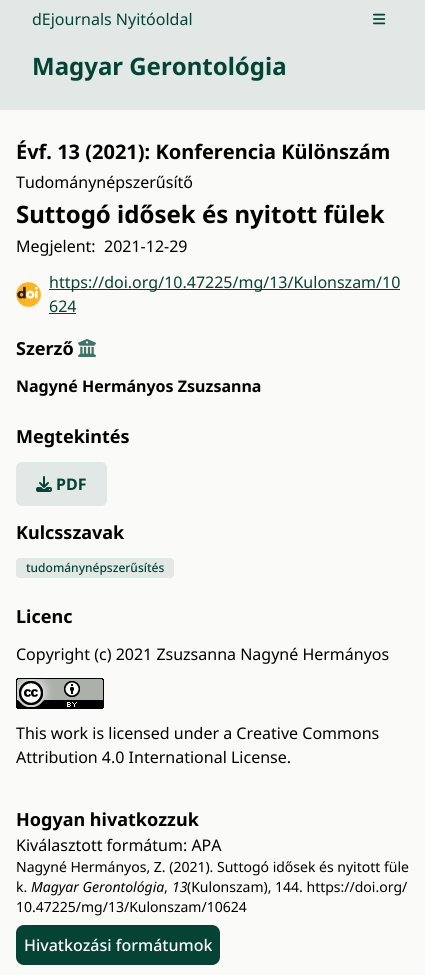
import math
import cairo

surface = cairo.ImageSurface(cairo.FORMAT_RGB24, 425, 975)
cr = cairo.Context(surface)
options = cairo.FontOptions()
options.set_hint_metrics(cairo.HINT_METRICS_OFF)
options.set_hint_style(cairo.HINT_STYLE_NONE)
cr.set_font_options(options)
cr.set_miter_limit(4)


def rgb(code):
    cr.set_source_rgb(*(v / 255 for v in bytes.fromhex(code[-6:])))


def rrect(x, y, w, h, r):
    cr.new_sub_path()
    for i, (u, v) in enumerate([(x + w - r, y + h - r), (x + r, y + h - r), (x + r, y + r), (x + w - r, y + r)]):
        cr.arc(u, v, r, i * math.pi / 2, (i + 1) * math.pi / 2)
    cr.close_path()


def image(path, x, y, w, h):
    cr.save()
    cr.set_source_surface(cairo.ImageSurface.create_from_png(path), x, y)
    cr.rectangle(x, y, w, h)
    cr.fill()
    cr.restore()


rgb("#fafaf9")
cr.paint()
rgb("#e1e8e6")
cr.rectangle(0, 0, 425, 110)
cr.fill()
image("img/1.png", 373, 13, 13, 12)
image("img/2.png", 16, 282, 25, 25)
rgb("#054434")
cr.rectangle(49, 289, 351, 1)
cr.fill()
cr.rectangle(49, 313, 27, 1)
cr.fill()
image("img/3.png", 78, 339, 18, 18)
rgb("#e1e8e6")
rrect(16, 462, 91, 44, 6)
cr.fill()
image("img/4.png", 36, 476, 16, 16)
rrect(16, 558, 158, 20, 4)
cr.fill()
image("img/5.png", 16, 678, 88, 31)
rgb("#054434")
rrect(16, 925, 204, 40, 8)
cr.fill()
cr.select_font_face("Noto Sans")
cr.set_font_size(16)
cr.move_to(32, 25)
cr.show_text("dEjournals Nyitóoldal")
cr.select_font_face("Noto Sans", cairo.FONT_SLANT_NORMAL, cairo.FONT_WEIGHT_BOLD)
cr.set_font_size(24)
cr.move_to(32, 75)
cr.show_text("Magyar Gerontológia")
cr.set_font_size(20)
rgb("#000000")
cr.move_to(16, 159)
cr.show_text("Évf. 13 (2021): Konferencia Különszám")
cr.select_font_face("Noto Sans")
cr.set_font_size(16)
cr.move_to(16, 188)
cr.show_text("Tudománynépszerűsítő")
cr.select_font_face("Noto Sans", cairo.FONT_SLANT_NORMAL, cairo.FONT_WEIGHT_BOLD)
cr.set_font_size(24)
cr.move_to(16, 223)
cr.show_text("Suttogó idősek és nyitott fülek")
cr.select_font_face("Noto Sans")
cr.set_font_size(16)
cr.move_to(16, 252)
cr.show_text("Megjelent:")
cr.move_to(104, 252)
cr.show_text("2021-12-29")
rgb("#054434")
cr.move_to(49, 288)
cr.show_text("https://doi.org/10.47225/mg/13/Kulonszam/10")
cr.move_to(49, 312)
cr.show_text("624")
cr.select_font_face("Noto Sans", cairo.FONT_SLANT_NORMAL, cairo.FONT_WEIGHT_BOLD)
cr.set_font_size(18)
rgb("#000000")
cr.move_to(16, 355)
cr.show_text("Szerző")
cr.set_font_size(16)
cr.move_to(16, 392)
cr.show_text("Nagyné Hermányos Zsuzsanna")
cr.set_font_size(18)
cr.move_to(16, 443)
cr.show_text("Megtekintés")
cr.set_font_size(16)
rgb("#054434")
cr.move_to(56, 490)
cr.show_text("PDF")
cr.set_font_size(18)
rgb("#000000")
cr.move_to(16, 539)
cr.show_text("Kulcsszavak")
cr.select_font_face("Noto Sans Medium")
cr.set_font_size(12)
rgb("#054434")
cr.move_to(26, 572)
cr.show_text("tudománynépszerűsítés")
cr.select_font_face("Noto Sans", cairo.FONT_SLANT_NORMAL, cairo.FONT_WEIGHT_BOLD)
cr.set_font_size(18)
rgb("#000000")
cr.move_to(16, 623)
cr.show_text("Licenc")
cr.select_font_face("Noto Sans")
cr.set_font_size(16)
for x, y, s in [
    (16, 660, "Copyright (c) 2021 Zsuzsanna Nagyné Hermányos"),
    (16, 739, "This work is licensed under a Creative Commons"),
    (16, 763, "Attribution 4.0 International License."),
]:
    cr.move_to(x, y)
    cr.show_text(s)
cr.select_font_face("Noto Sans", cairo.FONT_SLANT_NORMAL, cairo.FONT_WEIGHT_BOLD)
cr.set_font_size(18)
cr.move_to(16, 826)
cr.show_text("Hogyan hivatkozzuk")
cr.select_font_face("Noto Sans")
cr.set_font_size(16)
cr.move_to(16, 851)
cr.show_text("Kiválasztott formátum: APA")
cr.set_font_size(14)
cr.move_to(16, 872)
cr.show_text("Nagyné Hermányos, Z. (2021). Suttogó idősek és nyitott füle")
cr.move_to(16, 892)
cr.show_text("k.")
cr.select_font_face("Noto Sans", cairo.FONT_SLANT_ITALIC)
cr.move_to(31, 892)
cr.show_text("Magyar Gerontológia")
cr.select_font_face("Noto Sans")
cr.move_to(164, 892)
cr.show_text(",")
cr.select_font_face("Noto Sans", cairo.FONT_SLANT_ITALIC)
cr.move_to(172, 892)
cr.show_text("13")
cr.select_font_face("Noto Sans")
cr.move_to(187, 892)
cr.show_text("(Kulonszam), 144. https://doi.org/")
cr.move_to(16, 912)
cr.show_text("10.47225/mg/13/Kulonszam/10624")
cr.select_font_face("Noto Sans Medium")
cr.set_font_size(16)
rgb("#ffffff")
cr.move_to(24, 951)
cr.show_text("Hivatkozási formátumok")
surface.write_to_png("page.png")
